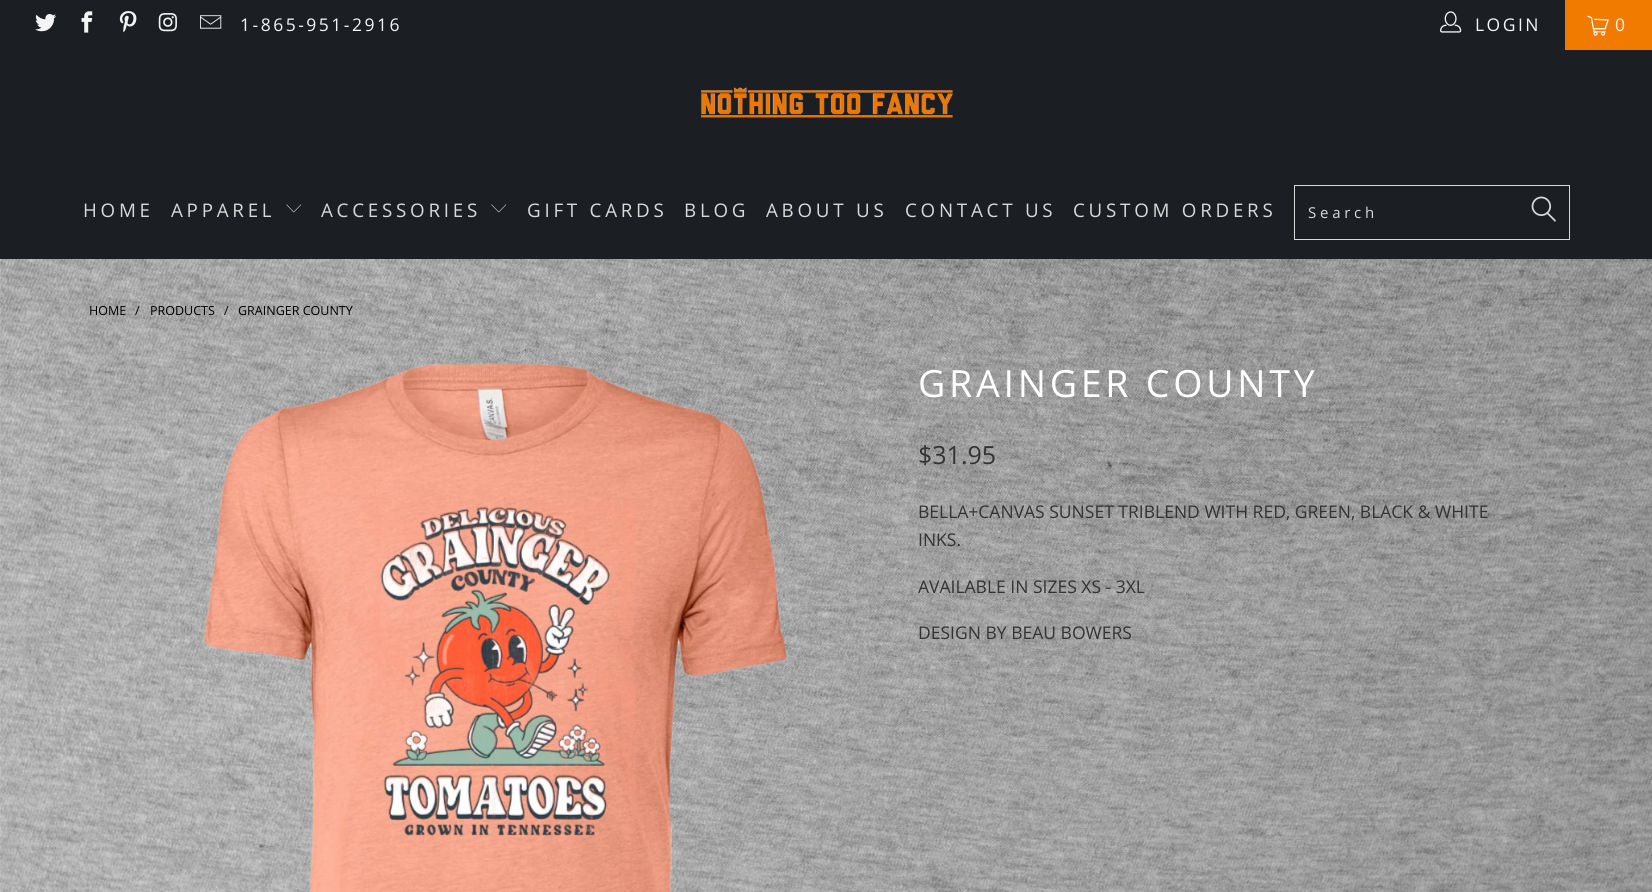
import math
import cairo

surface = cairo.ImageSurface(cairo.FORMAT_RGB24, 1652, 892)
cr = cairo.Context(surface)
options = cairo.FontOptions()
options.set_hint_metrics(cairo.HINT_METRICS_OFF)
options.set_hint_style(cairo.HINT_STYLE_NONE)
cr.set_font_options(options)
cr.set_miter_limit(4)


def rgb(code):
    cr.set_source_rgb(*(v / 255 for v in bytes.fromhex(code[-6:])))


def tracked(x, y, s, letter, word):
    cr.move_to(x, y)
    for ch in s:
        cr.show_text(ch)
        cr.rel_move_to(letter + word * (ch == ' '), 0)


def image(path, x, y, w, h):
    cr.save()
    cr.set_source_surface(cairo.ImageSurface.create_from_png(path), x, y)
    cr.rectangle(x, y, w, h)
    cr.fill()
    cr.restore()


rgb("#ffffff")
cr.paint()
image("img/1.png", 0, 259, 1652, 633)
rgb("#1b1f23")
cr.rectangle(0, 0, 1565, 50)
cr.fill()
image("img/2.png", 35, 14, 22, 18)
image("img/3.png", 81, 11, 12, 22)
image("img/4.png", 119, 11, 18, 22)
image("img/5.png", 158, 13, 19, 19)
image("img/6.png", 200, 15, 22, 14)
image("img/7.png", 1440, 11, 22, 22)
rgb("#f07b00")
cr.rectangle(1565, 0, 87, 50)
cr.fill()
image("img/8.png", 1587, 15, 22, 21)
rgb("#1b1f23")
cr.rectangle(0, 50, 1652, 209)
cr.fill()
image("img/9.png", 701, 87, 252, 31)
image("img/10.png", 286, 204, 16, 9)
image("img/10.png", 491, 204, 16, 9)
cr.rectangle(1294.5, 185.5, 275, 54)
rgb("#d9d9d9")
cr.set_line_width(1)
cr.stroke()
image("img/11.png", 1531, 196, 25, 26)
image("img/12.png", 203, 362, 584, 530)
cr.select_font_face("Open Sans")
cr.set_font_size(17.5)
rgb("#f4f4f4")
for x, y, s in [
    (240, 31, "1-865-951-2916"),
    (1475, 31, "LOGIN"),
    (1615, 31, "0"),
]:
    tracked(x, y, s, 2.5, 0)
cr.set_font_size(18.75)
rgb("#d9d9d9")
for x, y, s in [
    (83, 217, "HOME"),
    (171, 217, "APPAREL"),
    (321, 217, "ACCESSORIES"),
    (527, 217, "GIFT CARDS"),
    (684, 217, "BLOG"),
    (766, 217, "ABOUT US"),
    (905, 217, "CONTACT US"),
    (1073, 217, "CUSTOM ORDERS"),
]:
    tracked(x, y, s, 3.75, 0)
cr.set_font_size(15)
tracked(1308, 218, "Search", 3.75, 0)
cr.set_font_size(12.5)
rgb("#000000")
for x, y, s in [
    (89, 315, "HOME"),
    (135, 315, "/"),
    (150, 315, "PRODUCTS"),
    (224, 315, "/"),
    (238, 315, "GRAINGER COUNTY"),
]:
    cr.move_to(x, y)
    cr.show_text(s)
cr.set_font_size(37.5)
rgb("#ffffff")
tracked(918, 397, "GRAINGER COUNTY", 3.75, 0)
cr.set_font_size(25)
rgb("#333333")
cr.move_to(918, 464)
cr.show_text("$31.95")
cr.set_font_size(17.5)
for x, y, s in [
    (918, 518, "BELLA+CANVAS SUNSET TRIBLEND WITH RED, GREEN, BLACK & WHITE"),
    (918, 546, "INKS."),
    (918, 593, "AVAILABLE IN SIZES XS - 3XL"),
    (918, 639, "DESIGN BY BEAU BOWERS"),
]:
    cr.move_to(x, y)
    cr.show_text(s)
surface.write_to_png("page.png")
